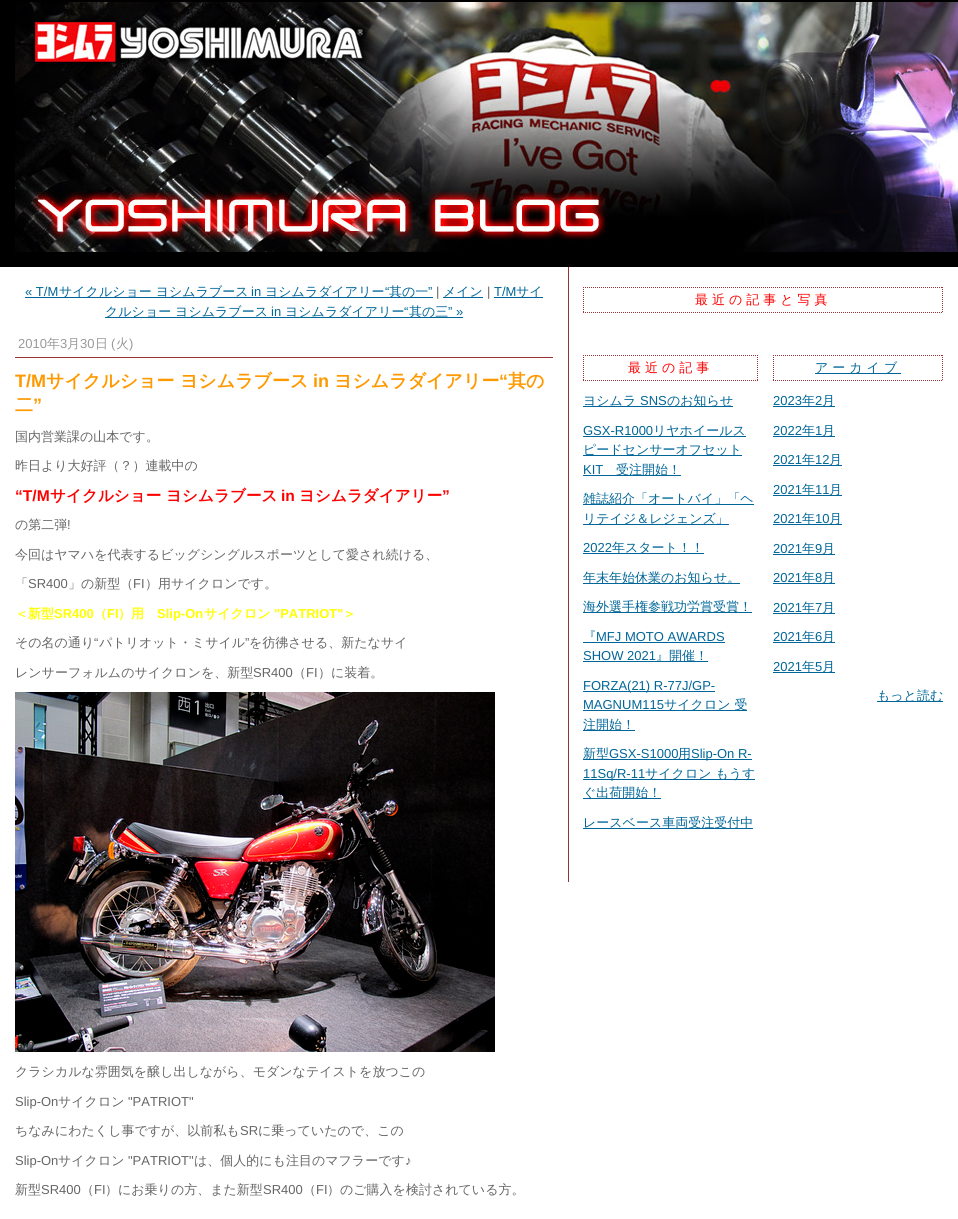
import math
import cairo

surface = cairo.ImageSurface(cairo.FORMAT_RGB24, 958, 1219)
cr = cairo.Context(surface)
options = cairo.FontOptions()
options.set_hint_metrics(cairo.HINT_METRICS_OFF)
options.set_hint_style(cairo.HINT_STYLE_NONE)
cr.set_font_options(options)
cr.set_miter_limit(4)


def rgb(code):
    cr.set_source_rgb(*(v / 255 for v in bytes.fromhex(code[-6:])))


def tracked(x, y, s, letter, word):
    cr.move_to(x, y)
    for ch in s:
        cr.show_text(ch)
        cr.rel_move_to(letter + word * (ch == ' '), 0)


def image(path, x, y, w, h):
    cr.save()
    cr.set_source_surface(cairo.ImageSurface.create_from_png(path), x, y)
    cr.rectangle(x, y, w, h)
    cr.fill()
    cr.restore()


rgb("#ffffff")
cr.paint()
rgb("#000000")
cr.rectangle(0, 0, 958, 267)
cr.fill()
image("img/1.png", 15, 2, 943, 250)
for x, y, w, h, color in [
    (25, 297, 408, 1, "#006699"),
    (443, 297, 40, 1, "#006699"),
    (494, 297, 49, 1, "#006699"),
    (105, 317, 358, 1, "#006699"),
    (15, 357, 538, 1, "#993333"),
]:
    rgb(color)
    cr.rectangle(x, y, w, h)
    cr.fill()
image("img/2.png", 15, 692, 480, 360)
cr.rectangle(568, 267, 1, 615)
cr.fill()
cr.new_path()
cr.move_to(583, 287.5)
cr.line_to(943, 287.5)
cr.set_line_width(1)
cr.set_dash([1, 1])
cr.stroke()
cr.new_path()
cr.move_to(942.5, 287)
cr.line_to(942.5, 313)
cr.stroke()
cr.new_path()
cr.move_to(583, 312.5)
cr.line_to(943, 312.5)
cr.stroke()
cr.new_path()
cr.move_to(583.5, 287)
cr.line_to(583.5, 313)
cr.stroke()
cr.new_path()
cr.move_to(583, 355.5)
cr.line_to(758, 355.5)
cr.stroke()
cr.new_path()
cr.move_to(757.5, 355)
cr.line_to(757.5, 381)
cr.stroke()
cr.new_path()
cr.move_to(583, 380.5)
cr.line_to(758, 380.5)
cr.stroke()
cr.new_path()
cr.move_to(583.5, 355)
cr.line_to(583.5, 381)
cr.stroke()
for x, y, w, h, color in [
    (583, 406, 150, 1, "#006699"),
    (583, 436, 163, 1, "#006699"),
    (583, 455, 159, 1, "#006699"),
    (583, 475, 98, 1, "#006699"),
    (583, 504, 171, 1, "#006699"),
    (583, 524, 146, 1, "#006699"),
    (583, 553, 121, 1, "#006699"),
    (583, 583, 157, 1, "#006699"),
    (583, 612, 169, 1, "#006699"),
    (583, 642, 142, 1, "#006699"),
    (583, 661, 125, 1, "#006699"),
    (583, 691, 132, 1, "#006699"),
    (583, 710, 164, 1, "#006699"),
    (583, 730, 52, 1, "#006699"),
    (583, 759, 169, 1, "#006699"),
    (583, 779, 172, 1, "#006699"),
    (583, 798, 78, 1, "#006699"),
    (583, 828, 170, 1, "#006699"),
]:
    rgb(color)
    cr.rectangle(x, y, w, h)
    cr.fill()
cr.new_path()
cr.move_to(773, 355.5)
cr.line_to(943, 355.5)
rgb("#993333")
cr.stroke()
cr.new_path()
cr.move_to(942.5, 355)
cr.line_to(942.5, 381)
cr.stroke()
cr.new_path()
cr.move_to(773, 380.5)
cr.line_to(943, 380.5)
cr.stroke()
cr.new_path()
cr.move_to(773.5, 355)
cr.line_to(773.5, 381)
cr.stroke()
for x, y, w, h, color in [
    (815, 373, 86, 1, "#006699"),
    (773, 406, 62, 1, "#006699"),
    (773, 436, 62, 1, "#006699"),
    (773, 465, 69, 1, "#006699"),
    (773, 495, 69, 1, "#006699"),
    (773, 524, 69, 1, "#006699"),
    (773, 554, 62, 1, "#006699"),
    (773, 583, 62, 1, "#006699"),
    (773, 613, 62, 1, "#006699"),
    (773, 642, 62, 1, "#006699"),
    (773, 672, 62, 1, "#006699"),
    (877, 701, 66, 1, "#006699"),
]:
    rgb(color)
    cr.rectangle(x, y, w, h)
    cr.fill()
cr.select_font_face("Liberation Sans")
cr.set_font_size(13)
cr.move_to(25, 296)
cr.show_text("« T/M")
cr.select_font_face("WenQuanYi Zen Hei Medium")
cr.move_to(59, 296)
cr.show_text("サイクルショー ヨシムラブース")
cr.select_font_face("Liberation Sans")
cr.move_to(251, 296)
cr.show_text("in")
cr.select_font_face("WenQuanYi Zen Hei Medium")
cr.move_to(265, 296)
cr.show_text("ヨシムラダイアリー")
cr.select_font_face("Liberation Sans")
cr.move_to(385, 296)
cr.show_text("“")
cr.select_font_face("WenQuanYi Zen Hei Medium")
cr.move_to(389, 296)
cr.show_text("其の一")
cr.select_font_face("Liberation Sans")
cr.move_to(428, 296)
cr.show_text("”")
rgb("#666666")
cr.move_to(436, 296)
cr.show_text("|")
cr.select_font_face("WenQuanYi Zen Hei Medium")
rgb("#006699")
cr.move_to(443, 296)
cr.show_text("メイン")
cr.select_font_face("Liberation Sans")
rgb("#666666")
cr.move_to(487, 296)
cr.show_text("|")
rgb("#006699")
cr.move_to(494, 296)
cr.show_text("T/M")
cr.select_font_face("WenQuanYi Zen Hei Medium")
cr.move_to(516, 296)
cr.show_text("サイ")
cr.move_to(105, 316)
cr.show_text("クルショー ヨシムラブース")
cr.select_font_face("Liberation Sans")
cr.move_to(271, 316)
cr.show_text("in")
cr.select_font_face("WenQuanYi Zen Hei Medium")
cr.move_to(285, 316)
cr.show_text("ヨシムラダイアリー")
cr.select_font_face("Liberation Sans")
cr.move_to(404, 316)
cr.show_text("“")
cr.select_font_face("WenQuanYi Zen Hei Medium")
cr.move_to(409, 316)
cr.show_text("其の三")
cr.select_font_face("Liberation Sans")
cr.move_to(448, 316)
cr.show_text("” »")
rgb("#999999")
cr.move_to(18, 348)
cr.show_text("2010")
cr.select_font_face("WenQuanYi Zen Hei Medium")
cr.move_to(47, 348)
cr.show_text("年")
cr.select_font_face("Liberation Sans")
cr.move_to(60, 348)
cr.show_text("3")
cr.select_font_face("WenQuanYi Zen Hei Medium")
cr.move_to(67, 348)
cr.show_text("月")
cr.select_font_face("Liberation Sans")
cr.move_to(80, 348)
cr.show_text("30")
cr.select_font_face("WenQuanYi Zen Hei Medium")
cr.move_to(95, 348)
cr.show_text("日")
cr.select_font_face("Liberation Sans")
cr.move_to(111, 348)
cr.show_text("(")
cr.select_font_face("WenQuanYi Zen Hei Medium")
cr.move_to(116, 348)
cr.show_text("火")
cr.select_font_face("Liberation Sans")
cr.move_to(129, 348)
cr.show_text(")")
cr.select_font_face("Liberation Sans", cairo.FONT_SLANT_NORMAL, cairo.FONT_WEIGHT_BOLD)
cr.set_font_size(18)
rgb("#ff9900")
cr.move_to(15, 387)
cr.show_text("T/M")
cr.select_font_face("WenQuanYi Zen Hei", cairo.FONT_SLANT_NORMAL, cairo.FONT_WEIGHT_BOLD)
cr.move_to(46, 387)
cr.show_text("サイクルショー ヨシムラブース")
cr.select_font_face("Liberation Sans", cairo.FONT_SLANT_NORMAL, cairo.FONT_WEIGHT_BOLD)
cr.move_to(313, 387)
cr.show_text("in")
cr.select_font_face("WenQuanYi Zen Hei", cairo.FONT_SLANT_NORMAL, cairo.FONT_WEIGHT_BOLD)
cr.move_to(334, 387)
cr.show_text("ヨシムラダイアリー")
cr.select_font_face("Liberation Sans", cairo.FONT_SLANT_NORMAL, cairo.FONT_WEIGHT_BOLD)
cr.move_to(499, 387)
cr.show_text("“")
cr.select_font_face("WenQuanYi Zen Hei", cairo.FONT_SLANT_NORMAL, cairo.FONT_WEIGHT_BOLD)
cr.move_to(508, 387)
cr.show_text("其の")
cr.move_to(15, 411)
cr.show_text("二")
cr.select_font_face("Liberation Sans", cairo.FONT_SLANT_NORMAL, cairo.FONT_WEIGHT_BOLD)
cr.move_to(33, 411)
cr.show_text("”")
cr.select_font_face("WenQuanYi Zen Hei Medium")
cr.set_font_size(13)
rgb("#666666")
cr.move_to(15, 441)
cr.show_text("国内営業課の山本です。")
cr.move_to(15, 470)
cr.show_text("昨日より大好評（？）連載中の")
cr.select_font_face("Liberation Sans", cairo.FONT_SLANT_NORMAL, cairo.FONT_WEIGHT_BOLD)
cr.set_font_size(15.6)
rgb("#ff0000")
cr.move_to(15, 501)
cr.show_text("“T/M")
cr.select_font_face("WenQuanYi Zen Hei", cairo.FONT_SLANT_NORMAL, cairo.FONT_WEIGHT_BOLD)
cr.move_to(50, 501)
cr.show_text("サイクルショー ヨシムラブース")
cr.select_font_face("Liberation Sans", cairo.FONT_SLANT_NORMAL, cairo.FONT_WEIGHT_BOLD)
cr.move_to(281, 501)
cr.show_text("in")
cr.select_font_face("WenQuanYi Zen Hei", cairo.FONT_SLANT_NORMAL, cairo.FONT_WEIGHT_BOLD)
cr.move_to(299, 501)
cr.show_text("ヨシムラダイアリー")
cr.select_font_face("Liberation Sans", cairo.FONT_SLANT_NORMAL, cairo.FONT_WEIGHT_BOLD)
cr.move_to(442, 501)
cr.show_text("”")
cr.select_font_face("WenQuanYi Zen Hei Medium")
cr.set_font_size(13)
rgb("#666666")
cr.move_to(15, 529)
cr.show_text("の第二弾")
cr.select_font_face("Liberation Sans")
cr.move_to(67, 529)
cr.show_text("!")
cr.select_font_face("WenQuanYi Zen Hei Medium")
cr.move_to(15, 559)
cr.show_text("今回はヤマハを代表するビッグシングルスポーツとして愛され続ける、")
cr.move_to(15, 588)
cr.show_text("「")
cr.select_font_face("Liberation Sans")
cr.move_to(28, 588)
cr.show_text("SR400")
cr.select_font_face("WenQuanYi Zen Hei Medium")
cr.move_to(68, 588)
cr.show_text("」の新型（")
cr.select_font_face("Liberation Sans")
cr.move_to(133, 588)
cr.show_text("FI")
cr.select_font_face("WenQuanYi Zen Hei Medium")
cr.move_to(145, 588)
cr.show_text("）用サイクロンです。")
cr.select_font_face("WenQuanYi Zen Hei", cairo.FONT_SLANT_NORMAL, cairo.FONT_WEIGHT_BOLD)
rgb("#ffff00")
cr.move_to(15, 618)
cr.show_text("＜新型")
cr.select_font_face("Liberation Sans", cairo.FONT_SLANT_NORMAL, cairo.FONT_WEIGHT_BOLD)
cr.move_to(54, 618)
cr.show_text("SR400")
cr.select_font_face("WenQuanYi Zen Hei", cairo.FONT_SLANT_NORMAL, cairo.FONT_WEIGHT_BOLD)
cr.move_to(94, 618)
cr.show_text("（")
cr.select_font_face("Liberation Sans", cairo.FONT_SLANT_NORMAL, cairo.FONT_WEIGHT_BOLD)
cr.move_to(107, 618)
cr.show_text("FI")
cr.select_font_face("WenQuanYi Zen Hei", cairo.FONT_SLANT_NORMAL, cairo.FONT_WEIGHT_BOLD)
cr.move_to(118, 618)
cr.show_text("）用")
cr.select_font_face("Liberation Sans", cairo.FONT_SLANT_NORMAL, cairo.FONT_WEIGHT_BOLD)
cr.move_to(157, 618)
cr.show_text("Slip-On")
cr.select_font_face("WenQuanYi Zen Hei", cairo.FONT_SLANT_NORMAL, cairo.FONT_WEIGHT_BOLD)
cr.move_to(204, 618)
cr.show_text("サイクロン")
cr.select_font_face("Liberation Sans", cairo.FONT_SLANT_NORMAL, cairo.FONT_WEIGHT_BOLD)
cr.move_to(274, 618)
cr.show_text("\"PATRIOT\"")
cr.select_font_face("WenQuanYi Zen Hei", cairo.FONT_SLANT_NORMAL, cairo.FONT_WEIGHT_BOLD)
cr.move_to(343, 618)
cr.show_text("＞")
cr.select_font_face("WenQuanYi Zen Hei Medium")
rgb("#666666")
cr.move_to(15, 647)
cr.show_text("その名の通り")
cr.select_font_face("Liberation Sans")
cr.move_to(94, 647)
cr.show_text("“")
cr.select_font_face("WenQuanYi Zen Hei Medium")
cr.move_to(99, 647)
cr.show_text("パトリオット・ミサイル")
cr.select_font_face("Liberation Sans")
cr.move_to(245, 647)
cr.show_text("”")
cr.select_font_face("WenQuanYi Zen Hei Medium")
cr.move_to(249, 647)
cr.show_text("を彷彿させる、新たなサイ")
cr.move_to(15, 677)
cr.show_text("レンサーフォルムのサイクロンを、新型")
cr.select_font_face("Liberation Sans")
cr.move_to(253, 677)
cr.show_text("SR400")
cr.select_font_face("WenQuanYi Zen Hei Medium")
cr.move_to(293, 677)
cr.show_text("（")
cr.select_font_face("Liberation Sans")
cr.move_to(306, 677)
cr.show_text("FI")
cr.select_font_face("WenQuanYi Zen Hei Medium")
cr.move_to(318, 677)
cr.show_text("）に装着。")
cr.move_to(15, 1076)
cr.show_text("クラシカルな雰囲気を醸し出しながら、モダンなテイストを放つこの")
cr.select_font_face("Liberation Sans")
cr.move_to(15, 1106)
cr.show_text("Slip-On")
cr.select_font_face("WenQuanYi Zen Hei Medium")
cr.move_to(58, 1106)
cr.show_text("サイクロン")
cr.select_font_face("Liberation Sans")
cr.move_to(128, 1106)
cr.show_text("\"PATRIOT\"")
cr.select_font_face("WenQuanYi Zen Hei Medium")
cr.move_to(15, 1135)
cr.show_text("ちなみにわたくし事ですが、以前私も")
cr.select_font_face("Liberation Sans")
cr.move_to(240, 1135)
cr.show_text("SR")
cr.select_font_face("WenQuanYi Zen Hei Medium")
cr.move_to(258, 1135)
cr.show_text("に乗っていたので、この")
cr.select_font_face("Liberation Sans")
cr.move_to(15, 1165)
cr.show_text("Slip-On")
cr.select_font_face("WenQuanYi Zen Hei Medium")
cr.move_to(58, 1165)
cr.show_text("サイクロン")
cr.select_font_face("Liberation Sans")
cr.move_to(128, 1165)
cr.show_text("\"PATRIOT\"")
cr.select_font_face("WenQuanYi Zen Hei Medium")
cr.move_to(194, 1165)
cr.show_text("は、個人的にも注目のマフラーです")
cr.select_font_face("Liberation Sans")
cr.move_to(405, 1165)
cr.show_text("♪")
cr.select_font_face("WenQuanYi Zen Hei Medium")
cr.move_to(15, 1194)
cr.show_text("新型")
cr.select_font_face("Liberation Sans")
cr.move_to(41, 1194)
cr.show_text("SR400")
cr.select_font_face("WenQuanYi Zen Hei Medium")
cr.move_to(81, 1194)
cr.show_text("（")
cr.select_font_face("Liberation Sans")
cr.move_to(94, 1194)
cr.show_text("FI")
cr.select_font_face("WenQuanYi Zen Hei Medium")
cr.move_to(105, 1194)
cr.show_text("）にお乗りの方、また新型")
cr.select_font_face("Liberation Sans")
cr.move_to(263, 1194)
cr.show_text("SR400")
cr.select_font_face("WenQuanYi Zen Hei Medium")
cr.move_to(303, 1194)
cr.show_text("（")
cr.select_font_face("Liberation Sans")
cr.move_to(316, 1194)
cr.show_text("FI")
cr.select_font_face("WenQuanYi Zen Hei Medium")
cr.move_to(327, 1194)
cr.show_text("）のご購入を検討されている方。")
rgb("#ff0000")
tracked(695, 304, "最近の記事と写真", 4, 0)
tracked(628, 372, "最近の記事", 4, 0)
rgb("#006699")
cr.move_to(583, 405)
cr.show_text("ヨシムラ")
cr.select_font_face("Liberation Sans")
cr.move_to(640, 405)
cr.show_text("SNS")
cr.select_font_face("WenQuanYi Zen Hei Medium")
cr.move_to(667, 405)
cr.show_text("のお知らせ")
cr.select_font_face("Liberation Sans")
cr.move_to(583, 435)
cr.show_text("GSX-R1000")
cr.select_font_face("WenQuanYi Zen Hei Medium")
cr.move_to(653, 435)
cr.show_text("リヤホイールス")
cr.move_to(583, 454)
cr.show_text("ピードセンサーオフセット")
cr.select_font_face("Liberation Sans")
cr.move_to(583, 474)
cr.show_text("KIT")
cr.select_font_face("WenQuanYi Zen Hei Medium")
for x, y, s in [
    (616, 474, "受注開始！"),
    (583, 503, "雑誌紹介「オートバイ」「ヘ"),
    (583, 523, "リテイジ＆レジェンズ」"),
]:
    cr.move_to(x, y)
    cr.show_text(s)
cr.select_font_face("Liberation Sans")
cr.move_to(583, 552)
cr.show_text("2022")
cr.select_font_face("WenQuanYi Zen Hei Medium")
for x, y, s in [
    (612, 552, "年スタート！！"),
    (583, 582, "年末年始休業のお知らせ。"),
    (583, 611, "海外選手権参戦功労賞受賞！"),
    (583, 641, "『"),
]:
    cr.move_to(x, y)
    cr.show_text(s)
cr.select_font_face("Liberation Sans")
cr.move_to(596, 641)
cr.show_text("MFJ MOTO AWARDS")
cr.move_to(583, 660)
cr.show_text("SHOW 2021")
cr.select_font_face("WenQuanYi Zen Hei Medium")
cr.move_to(656, 660)
cr.show_text("』開催！")
cr.select_font_face("Liberation Sans")
cr.move_to(583, 690)
cr.show_text("FORZA(21) R-77J/GP-")
cr.move_to(583, 709)
cr.show_text("MAGNUM115")
cr.select_font_face("WenQuanYi Zen Hei Medium")
for x, y, s in [
    (664, 709, "サイクロン 受"),
    (583, 729, "注開始！"),
    (583, 758, "新型"),
]:
    cr.move_to(x, y)
    cr.show_text(s)
cr.select_font_face("Liberation Sans")
cr.move_to(609, 758)
cr.show_text("GSX-S1000")
cr.select_font_face("WenQuanYi Zen Hei Medium")
cr.move_to(678, 758)
cr.show_text("用")
cr.select_font_face("Liberation Sans")
cr.move_to(691, 758)
cr.show_text("Slip-On R-")
cr.move_to(583, 778)
cr.show_text("11Sq/R-11")
cr.select_font_face("WenQuanYi Zen Hei Medium")
for x, y, s in [
    (645, 778, "サイクロン もうす"),
    (583, 797, "ぐ出荷開始！"),
    (583, 827, "レースベース車両受注受付中"),
]:
    cr.move_to(x, y)
    cr.show_text(s)
tracked(815, 372, "アーカイブ", 4, 0)
cr.select_font_face("Liberation Sans")
cr.move_to(773, 405)
cr.show_text("2023")
cr.select_font_face("WenQuanYi Zen Hei Medium")
cr.move_to(802, 405)
cr.show_text("年")
cr.select_font_face("Liberation Sans")
cr.move_to(815, 405)
cr.show_text("2")
cr.select_font_face("WenQuanYi Zen Hei Medium")
cr.move_to(822, 405)
cr.show_text("月")
cr.select_font_face("Liberation Sans")
cr.move_to(773, 435)
cr.show_text("2022")
cr.select_font_face("WenQuanYi Zen Hei Medium")
cr.move_to(802, 435)
cr.show_text("年")
cr.select_font_face("Liberation Sans")
cr.move_to(815, 435)
cr.show_text("1")
cr.select_font_face("WenQuanYi Zen Hei Medium")
cr.move_to(822, 435)
cr.show_text("月")
cr.select_font_face("Liberation Sans")
cr.move_to(773, 464)
cr.show_text("2021")
cr.select_font_face("WenQuanYi Zen Hei Medium")
cr.move_to(802, 464)
cr.show_text("年")
cr.select_font_face("Liberation Sans")
cr.move_to(815, 464)
cr.show_text("12")
cr.select_font_face("WenQuanYi Zen Hei Medium")
cr.move_to(829, 464)
cr.show_text("月")
cr.select_font_face("Liberation Sans")
cr.move_to(773, 494)
cr.show_text("2021")
cr.select_font_face("WenQuanYi Zen Hei Medium")
cr.move_to(802, 494)
cr.show_text("年")
cr.select_font_face("Liberation Sans")
cr.move_to(815, 494)
cr.show_text("11")
cr.select_font_face("WenQuanYi Zen Hei Medium")
cr.move_to(829, 494)
cr.show_text("月")
cr.select_font_face("Liberation Sans")
cr.move_to(773, 523)
cr.show_text("2021")
cr.select_font_face("WenQuanYi Zen Hei Medium")
cr.move_to(802, 523)
cr.show_text("年")
cr.select_font_face("Liberation Sans")
cr.move_to(815, 523)
cr.show_text("10")
cr.select_font_face("WenQuanYi Zen Hei Medium")
cr.move_to(829, 523)
cr.show_text("月")
cr.select_font_face("Liberation Sans")
cr.move_to(773, 553)
cr.show_text("2021")
cr.select_font_face("WenQuanYi Zen Hei Medium")
cr.move_to(802, 553)
cr.show_text("年")
cr.select_font_face("Liberation Sans")
cr.move_to(815, 553)
cr.show_text("9")
cr.select_font_face("WenQuanYi Zen Hei Medium")
cr.move_to(822, 553)
cr.show_text("月")
cr.select_font_face("Liberation Sans")
cr.move_to(773, 582)
cr.show_text("2021")
cr.select_font_face("WenQuanYi Zen Hei Medium")
cr.move_to(802, 582)
cr.show_text("年")
cr.select_font_face("Liberation Sans")
cr.move_to(815, 582)
cr.show_text("8")
cr.select_font_face("WenQuanYi Zen Hei Medium")
cr.move_to(822, 582)
cr.show_text("月")
cr.select_font_face("Liberation Sans")
cr.move_to(773, 612)
cr.show_text("2021")
cr.select_font_face("WenQuanYi Zen Hei Medium")
cr.move_to(802, 612)
cr.show_text("年")
cr.select_font_face("Liberation Sans")
cr.move_to(815, 612)
cr.show_text("7")
cr.select_font_face("WenQuanYi Zen Hei Medium")
cr.move_to(822, 612)
cr.show_text("月")
cr.select_font_face("Liberation Sans")
cr.move_to(773, 641)
cr.show_text("2021")
cr.select_font_face("WenQuanYi Zen Hei Medium")
cr.move_to(802, 641)
cr.show_text("年")
cr.select_font_face("Liberation Sans")
cr.move_to(815, 641)
cr.show_text("6")
cr.select_font_face("WenQuanYi Zen Hei Medium")
cr.move_to(822, 641)
cr.show_text("月")
cr.select_font_face("Liberation Sans")
cr.move_to(773, 671)
cr.show_text("2021")
cr.select_font_face("WenQuanYi Zen Hei Medium")
cr.move_to(802, 671)
cr.show_text("年")
cr.select_font_face("Liberation Sans")
cr.move_to(815, 671)
cr.show_text("5")
cr.select_font_face("WenQuanYi Zen Hei Medium")
cr.move_to(822, 671)
cr.show_text("月")
cr.move_to(877, 700)
cr.show_text("もっと読む")
surface.write_to_png("page.png")
